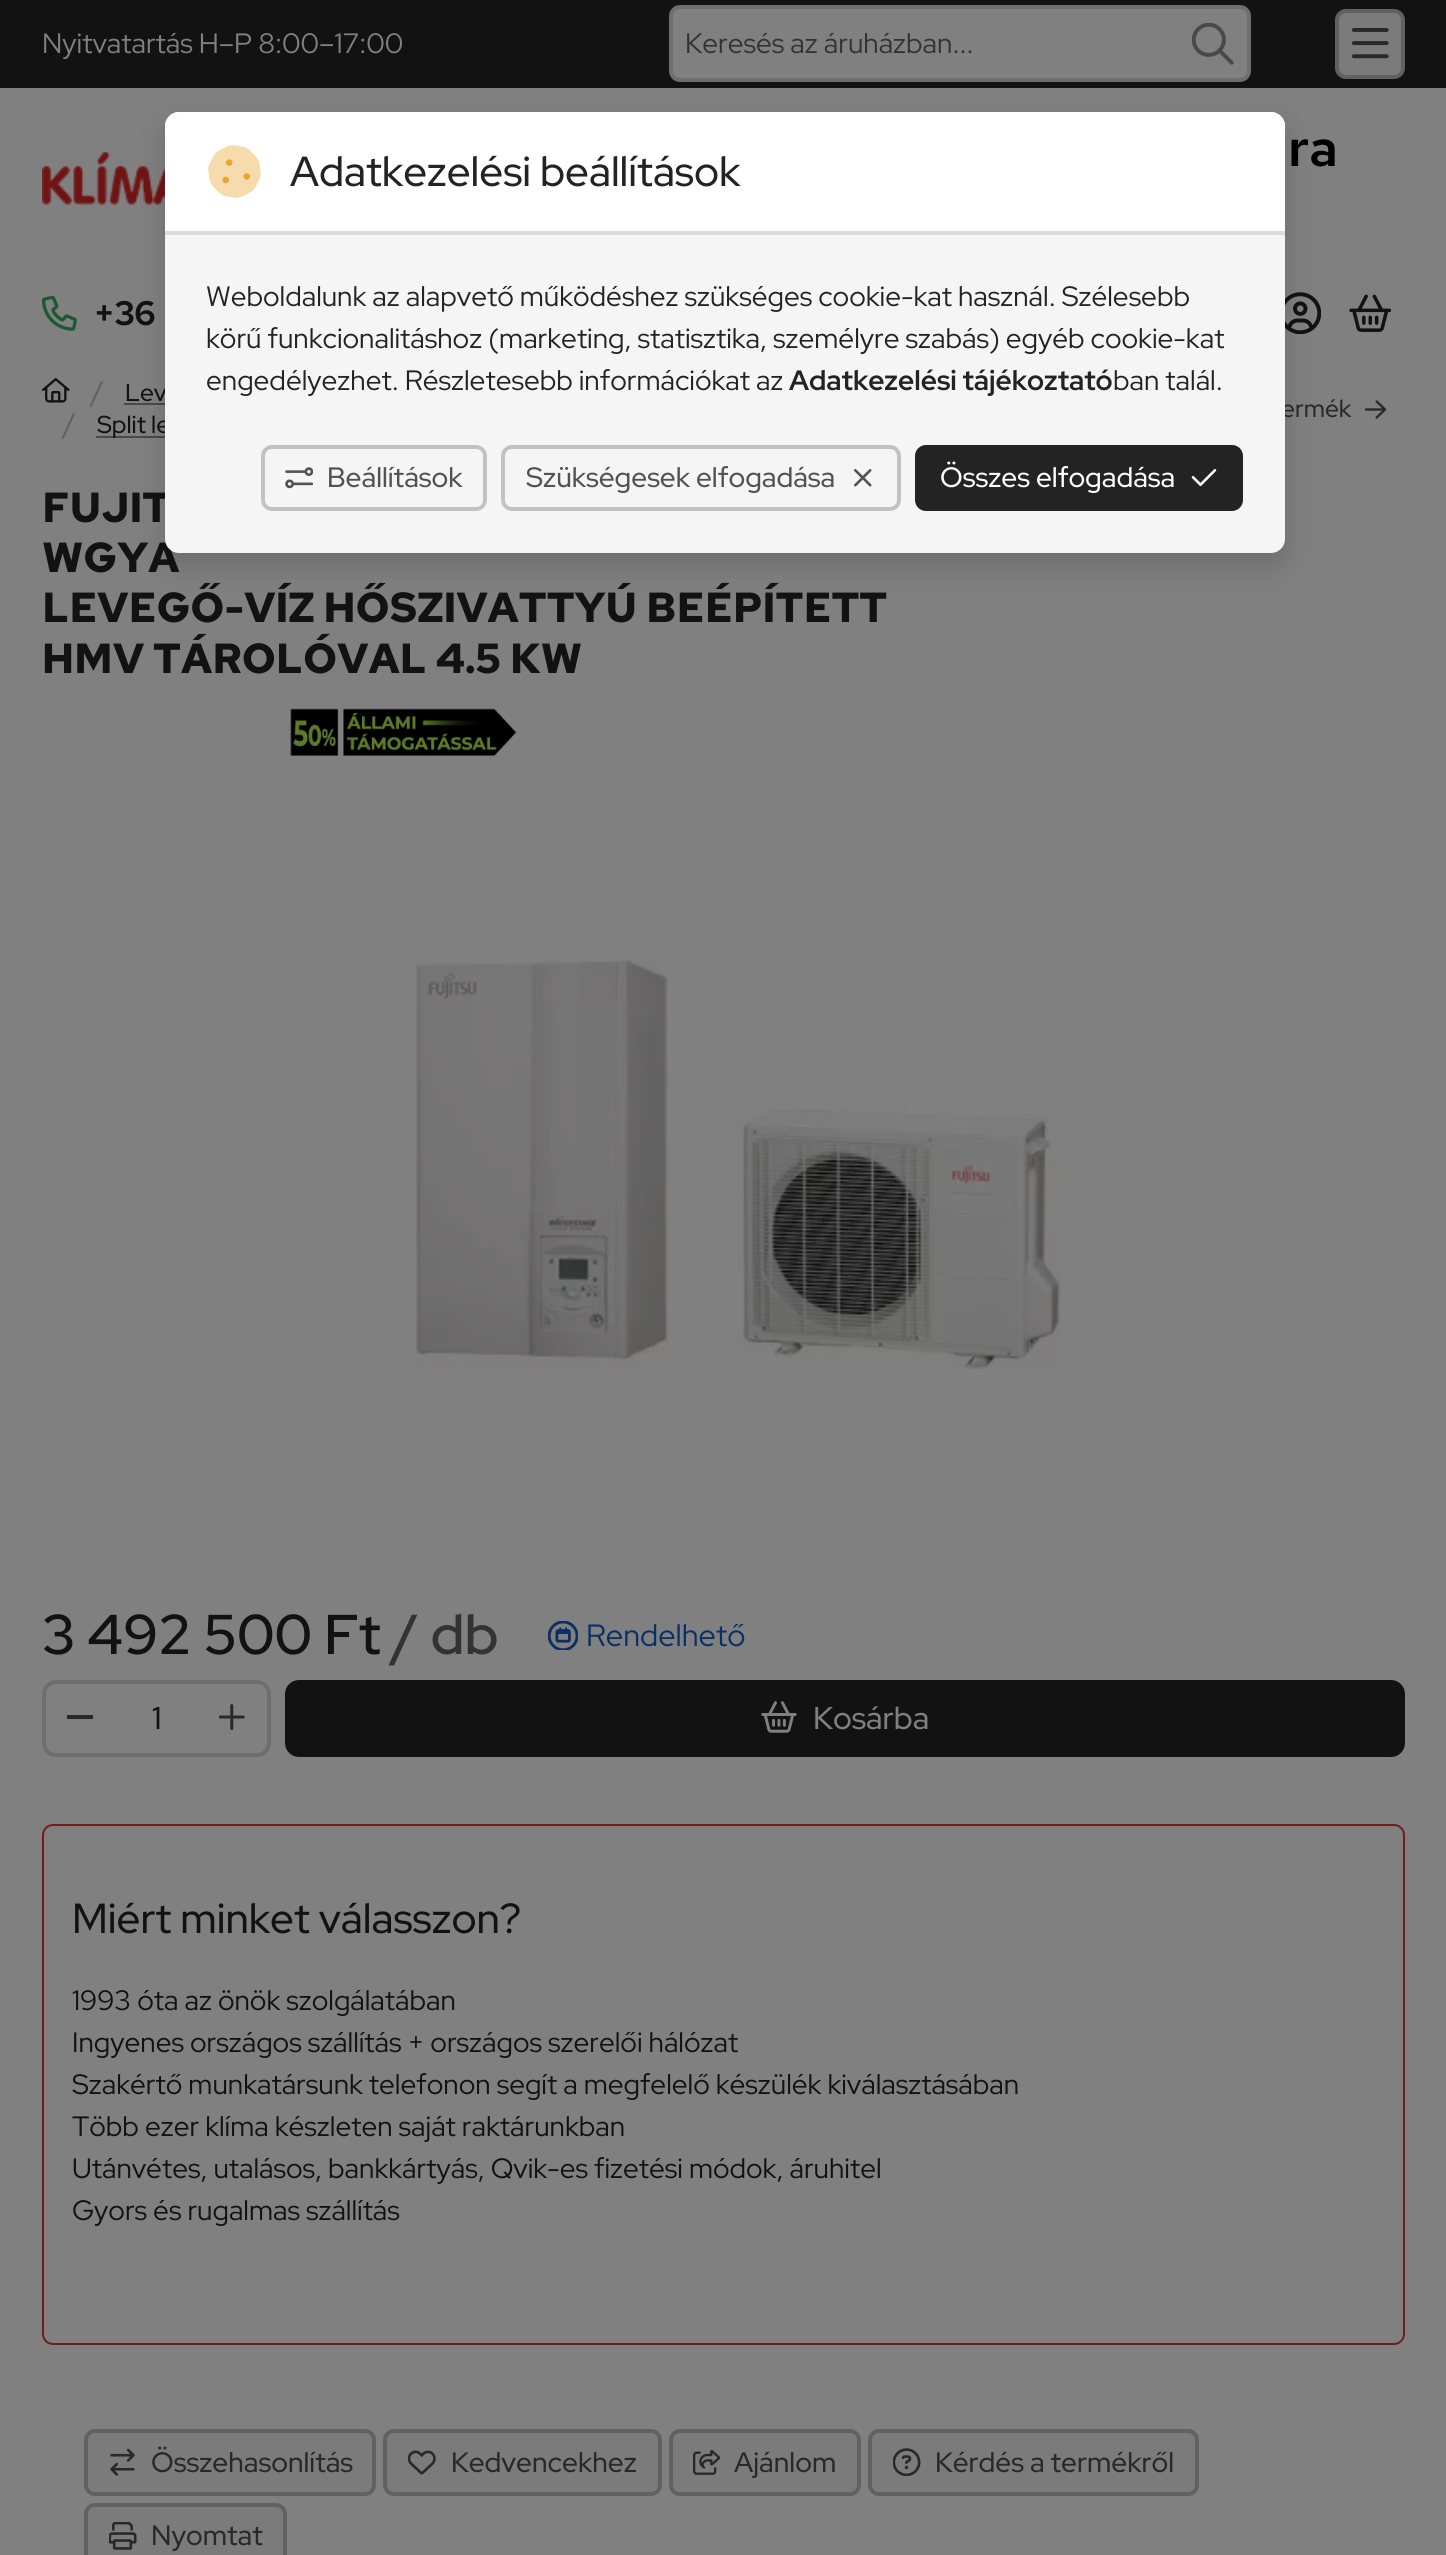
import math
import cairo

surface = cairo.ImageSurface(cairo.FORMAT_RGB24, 1446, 2555)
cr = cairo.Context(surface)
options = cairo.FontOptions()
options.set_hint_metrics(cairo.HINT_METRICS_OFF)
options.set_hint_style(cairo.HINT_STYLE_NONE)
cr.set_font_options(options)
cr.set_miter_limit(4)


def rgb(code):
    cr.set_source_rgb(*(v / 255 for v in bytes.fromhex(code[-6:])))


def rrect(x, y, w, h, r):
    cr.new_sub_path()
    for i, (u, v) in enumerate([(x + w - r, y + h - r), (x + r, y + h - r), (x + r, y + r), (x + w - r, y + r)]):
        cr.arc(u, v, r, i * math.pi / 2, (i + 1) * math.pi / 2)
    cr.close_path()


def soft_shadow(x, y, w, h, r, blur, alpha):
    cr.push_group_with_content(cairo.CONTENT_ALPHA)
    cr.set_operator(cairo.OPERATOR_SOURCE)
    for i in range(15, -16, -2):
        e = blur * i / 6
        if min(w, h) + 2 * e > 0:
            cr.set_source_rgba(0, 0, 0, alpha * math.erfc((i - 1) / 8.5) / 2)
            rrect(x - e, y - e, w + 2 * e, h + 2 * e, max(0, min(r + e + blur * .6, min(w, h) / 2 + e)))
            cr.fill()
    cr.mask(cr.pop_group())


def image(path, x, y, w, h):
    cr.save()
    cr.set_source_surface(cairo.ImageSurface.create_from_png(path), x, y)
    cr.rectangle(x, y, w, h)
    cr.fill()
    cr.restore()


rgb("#808080")
cr.paint()
rgb("#121212")
cr.rectangle(0, 0, 1446, 88)
cr.fill()
rgb("#808080")
rrect(671, 7, 578, 73, 9)
cr.fill_preserve()
rgb("#6e6e6e")
cr.set_line_width(4)
cr.stroke()
image("img/1.png", 1192, 23, 42, 42)
rgb("#7b7b7b")
rrect(1337, 11, 66, 66, 9)
cr.fill_preserve()
rgb("#616161")
cr.stroke()
image("img/2.png", 1351, 28, 38, 31)
image("img/3.png", 42, 152, 123, 53)
image("img/4.png", 42, 296, 35, 35)
image("img/5.png", 1285, 292, 36, 42)
image("img/6.png", 1349, 294, 42, 38)
rgb("#494949")
cr.rectangle(124, 403, 41, 2)
cr.fill()
cr.rectangle(96, 436, 69, 2)
cr.fill()
rgb("#000000")
soft_shadow(165, 126, 1120, 441, 14, 14, 0.15)
image("img/11.png", 42, 378, 28, 25)
image("img/12.png", 1364, 400, 23, 19)
image("img/13.png", 290, 708, 227, 48)
image("img/14.png", 416, 960, 645, 409)
image("img/15.png", 548, 1621, 30, 29)
rrect(44, 1682, 225, 73, 12)
rgb("#6e6e6e")
cr.stroke()
rgb("#292929")
cr.rectangle(67, 1715, 26, 4)
cr.fill()
image("img/16.png", 219, 1704, 26, 26)
rgb("#121212")
rrect(287, 1682, 1116, 73, 12)
cr.fill_preserve()
cr.stroke()
image("img/17.png", 761, 1701, 36, 32)
rrect(43, 1825, 1361, 519, 10)
rgb("#731d1b")
cr.set_line_width(2)
cr.stroke()
rgb("#7b7b7b")
rrect(86, 2431, 288, 63, 9)
cr.fill_preserve()
rgb("#616161")
cr.set_line_width(4)
cr.stroke()
image("img/18.png", 110, 2448, 25, 28)
rgb("#7b7b7b")
rrect(385, 2431, 275, 63, 9)
cr.fill_preserve()
rgb("#616161")
cr.stroke()
image("img/19.png", 408, 2450, 28, 25)
rgb("#7b7b7b")
rrect(671, 2431, 188, 63, 9)
cr.fill_preserve()
rgb("#616161")
cr.stroke()
image("img/20.png", 693, 2450, 28, 25)
rgb("#7b7b7b")
rrect(870, 2431, 327, 63, 9)
cr.fill_preserve()
rgb("#616161")
cr.stroke()
image("img/21.png", 893, 2448, 28, 28)
rgb("#7b7b7b")
rrect(86, 2505, 199, 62, 9)
cr.fill_preserve()
rgb("#616161")
cr.stroke()
image("img/22.png", 109, 2522, 28, 28)
cr.select_font_face("Red Hat Display")
cr.set_font_size(28)
rgb("#808080")
cr.move_to(42, 53)
cr.show_text("Nyitvatartás H–P 8:00–17:00")
rgb("#333333")
cr.move_to(685, 53)
cr.show_text("Keresés az áruházban...")
cr.select_font_face("Red Hat Text SemiBold")
cr.set_font_size(52)
rgb("#000000")
cr.move_to(1288, 166)
cr.show_text("ra")
cr.select_font_face("Red Hat Display ExtraBold")
cr.set_font_size(34)
rgb("#121212")
cr.move_to(94, 325)
cr.show_text("+36")
cr.select_font_face("Red Hat Display Medium")
cr.set_font_size(28)
rgb("#616161")
cr.move_to(91, 401)
cr.show_text("/")
cr.set_font_size(24.5)
rgb("#121212")
cr.move_to(125, 401)
cr.show_text("Lev")
cr.set_font_size(28)
rgb("#616161")
cr.move_to(63, 433)
cr.show_text("/")
cr.set_font_size(24.5)
rgb("#121212")
cr.move_to(97, 433)
cr.show_text("Split le")
rgb("#292929")
cr.move_to(1281, 417)
cr.show_text("ermék")
cr.select_font_face("Red Hat Text", cairo.FONT_SLANT_NORMAL, cairo.FONT_WEIGHT_BOLD)
cr.set_font_size(42)
rgb("#121212")
cr.move_to(42, 522)
cr.show_text("FUJIT")
cr.move_to(42, 572)
cr.show_text("WGYA")
rgb("#f5f5f5")
rrect(165, 112, 1120, 441, 14)
cr.fill()
rgb("#232323")
rrect(917, 447, 324, 62, 9)
cr.fill_preserve()
cr.stroke()
image("img/10.png", 1191, 469, 26, 17)
rrect(503, 447, 396, 62, 9)
rgb("#c2c2c2")
cr.stroke()
image("img/9.png", 854, 469, 18, 18)
rrect(263, 447, 222, 62, 9)
cr.stroke()
image("img/8.png", 285, 467, 28, 22)
cr.select_font_face("Red Hat Display Medium")
cr.set_font_size(28)
rgb("#ffffff")
cr.move_to(940, 487)
cr.show_text("Összes elfogadása")
rgb("#525252")
cr.move_to(526, 487)
cr.show_text("Szükségesek elfogadása")
cr.move_to(327, 487)
cr.show_text("Beállítások")
cr.select_font_face("Red Hat Display")
rgb("#232323")
cr.move_to(1113, 390)
cr.show_text("ban talál.")
cr.select_font_face("Red Hat Display", cairo.FONT_SLANT_NORMAL, cairo.FONT_WEIGHT_BOLD)
cr.move_to(789, 390)
cr.show_text("Adatkezelési tájékoztató")
cr.select_font_face("Red Hat Display")
for x, y, s in [
    (206, 390, "engedélyezhet. Részletesebb információkat az"),
    (206, 348, "körű funkcionalitáshoz (marketing, statisztika, személyre szabás) egyéb cookie-kat"),
    (206, 306, "Weboldalunk az alapvető működéshez szükséges cookie-kat használ. Szélesebb"),
]:
    cr.move_to(x, y)
    cr.show_text(s)
rgb("#ffffff")
cr.new_path()
cr.move_to(179, 112)
cr.line_to(1271, 112)
cr.curve_to(1278.5, 112, 1285, 118.5, 1285, 126)
cr.line_to(1285, 235)
cr.line_to(165, 235)
cr.line_to(165, 126)
cr.curve_to(165, 118.5, 171.5, 112, 179, 112)
cr.close_path()
cr.fill()
image("img/7.png", 208, 145, 53, 53)
cr.select_font_face("Red Hat Display Medium")
cr.set_font_size(42)
rgb("#232323")
cr.move_to(290, 186)
cr.show_text("Adatkezelési beállítások")
rgb("#dbdbdb")
cr.rectangle(165, 231, 1120, 4)
cr.fill()
cr.select_font_face("Red Hat Text", cairo.FONT_SLANT_NORMAL, cairo.FONT_WEIGHT_BOLD)
rgb("#121212")
cr.move_to(42, 622)
cr.show_text("LEVEGŐ-VÍZ HŐSZIVATTYÚ BEÉPÍTETT")
cr.move_to(42, 673)
cr.show_text("HMV TÁROLÓVAL 4.5 KW")
cr.select_font_face("Red Hat Display SemiBold")
cr.set_font_size(56)
cr.move_to(42, 1654)
cr.show_text("3 492 500 Ft")
rgb("#333333")
cr.move_to(392, 1654)
cr.show_text("/ db")
cr.select_font_face("Red Hat Display")
cr.set_font_size(30.75)
rgb("#0b2f65")
cr.move_to(586, 1646)
cr.show_text("Rendelhető")
cr.select_font_face("Red Hat Display Medium")
cr.set_font_size(31.5)
rgb("#121212")
cr.move_to(152, 1729)
cr.show_text("1")
rgb("#808080")
cr.move_to(813, 1729)
cr.show_text("Kosárba")
cr.set_font_size(42)
rgb("#121212")
cr.move_to(72, 1933)
cr.show_text("Miért minket válasszon?")
cr.select_font_face("Red Hat Display")
cr.set_font_size(28)
for x, y, s in [
    (72, 2010, "1993 óta az önök szolgálatában"),
    (72, 2052, "Ingyenes országos szállítás + országos szerelői hálózat"),
    (72, 2094, "Szakértő munkatársunk telefonon segít a megfelelő készülék kiválasztásában"),
    (72, 2136, "Több ezer klíma készleten saját raktárunkban"),
    (72, 2178, "Utánvétes, utalásos, bankkártyás, Qvik-es fizetési módok, áruhitel"),
    (72, 2220, "Gyors és rugalmas szállítás"),
]:
    cr.move_to(x, y)
    cr.show_text(s)
cr.select_font_face("Red Hat Display Medium")
rgb("#292929")
for x, y, s in [
    (151, 2472, "Összehasonlítás"),
    (451, 2472, "Kedvencekhez"),
    (734, 2472, "Ajánlom"),
    (935, 2472, "Kérdés a termékről"),
    (151, 2545, "Nyomtat"),
]:
    cr.move_to(x, y)
    cr.show_text(s)
surface.write_to_png("page.png")
